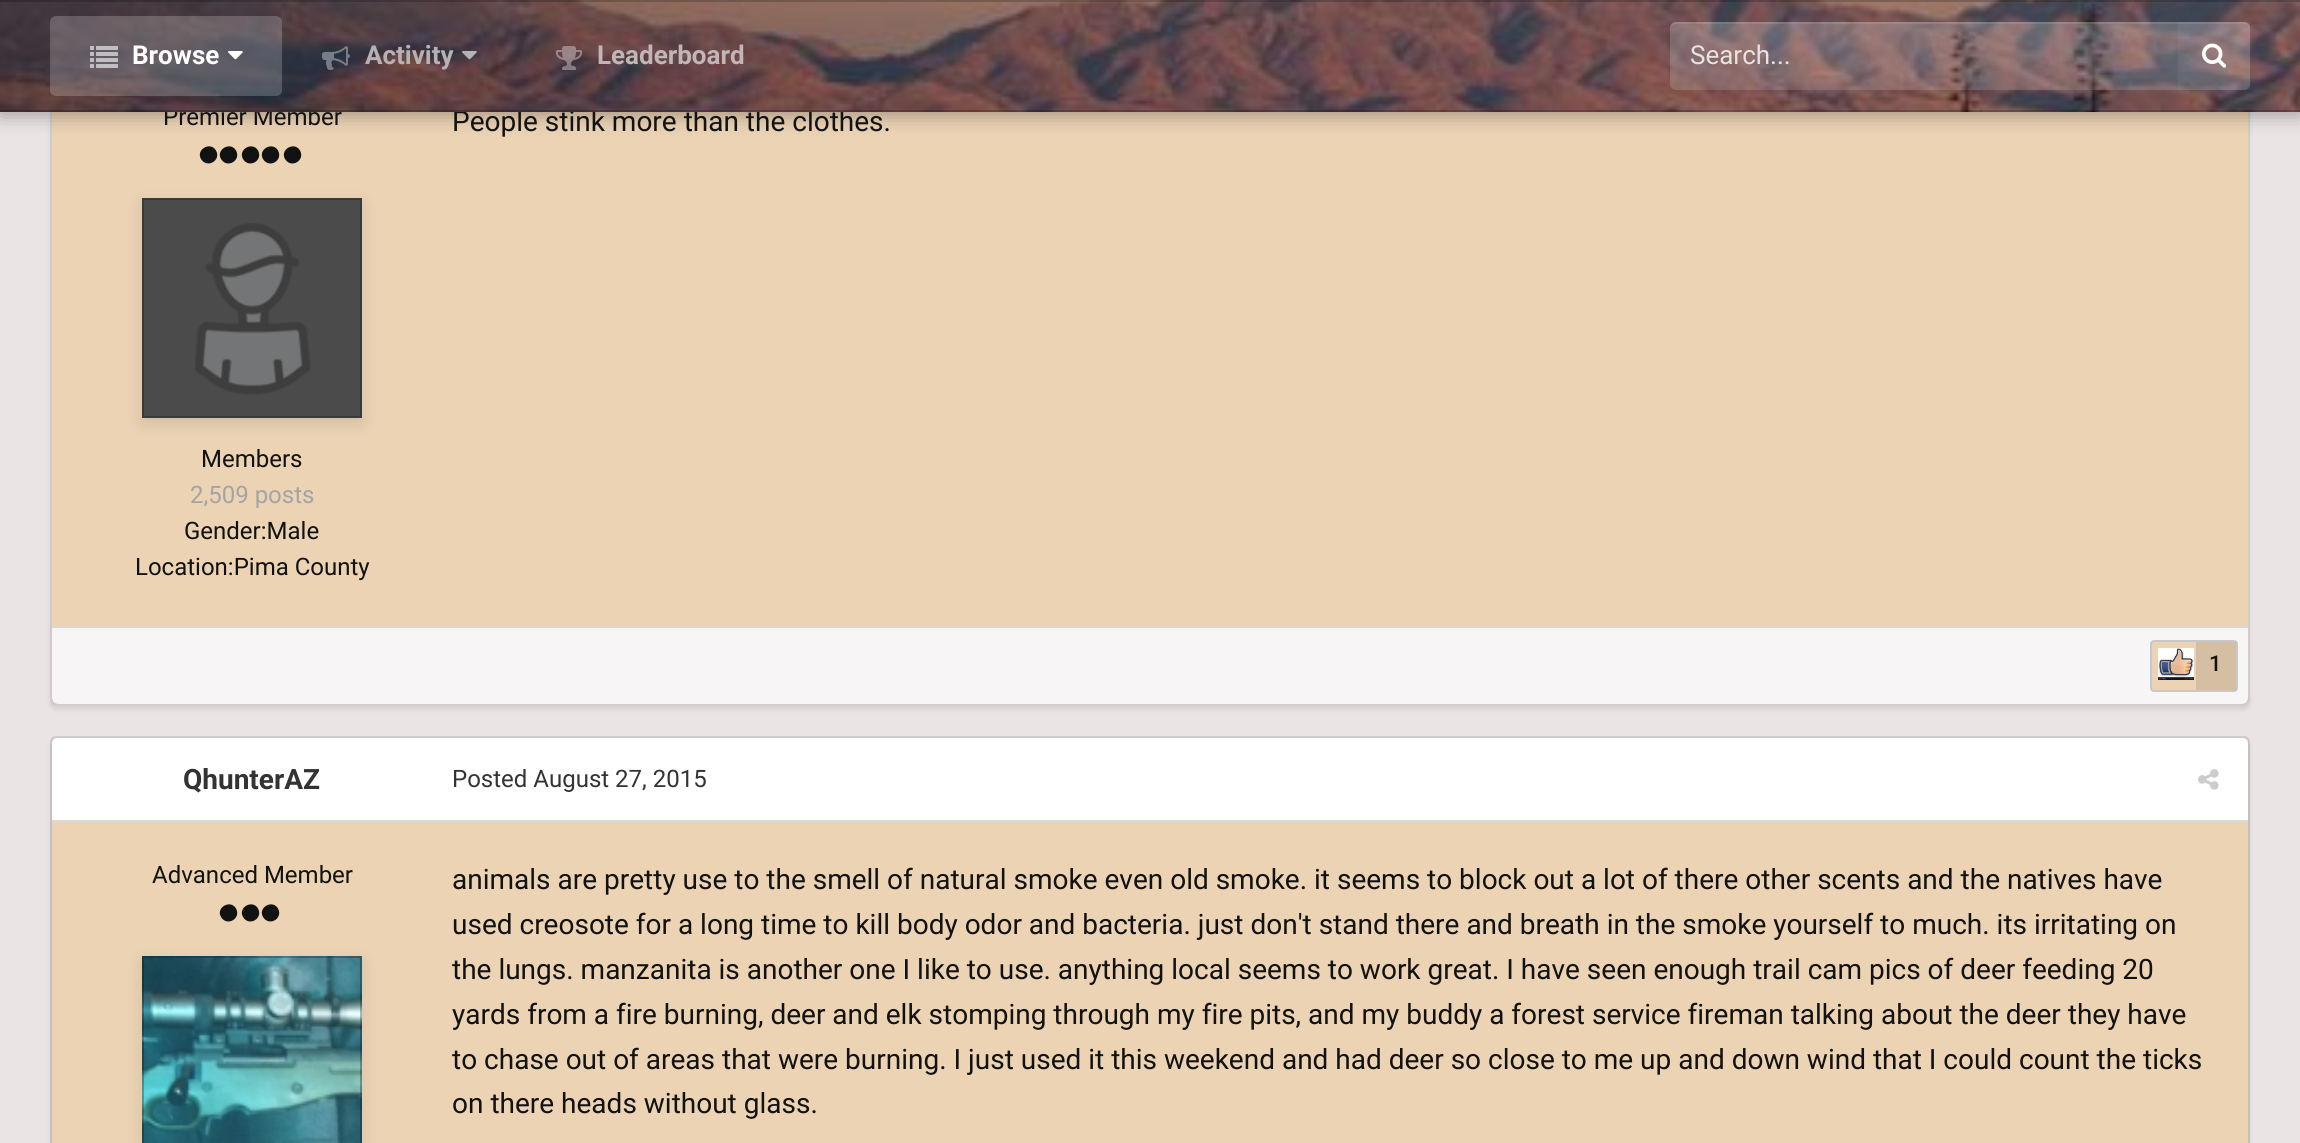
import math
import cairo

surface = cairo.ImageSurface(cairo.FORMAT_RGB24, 2300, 1143)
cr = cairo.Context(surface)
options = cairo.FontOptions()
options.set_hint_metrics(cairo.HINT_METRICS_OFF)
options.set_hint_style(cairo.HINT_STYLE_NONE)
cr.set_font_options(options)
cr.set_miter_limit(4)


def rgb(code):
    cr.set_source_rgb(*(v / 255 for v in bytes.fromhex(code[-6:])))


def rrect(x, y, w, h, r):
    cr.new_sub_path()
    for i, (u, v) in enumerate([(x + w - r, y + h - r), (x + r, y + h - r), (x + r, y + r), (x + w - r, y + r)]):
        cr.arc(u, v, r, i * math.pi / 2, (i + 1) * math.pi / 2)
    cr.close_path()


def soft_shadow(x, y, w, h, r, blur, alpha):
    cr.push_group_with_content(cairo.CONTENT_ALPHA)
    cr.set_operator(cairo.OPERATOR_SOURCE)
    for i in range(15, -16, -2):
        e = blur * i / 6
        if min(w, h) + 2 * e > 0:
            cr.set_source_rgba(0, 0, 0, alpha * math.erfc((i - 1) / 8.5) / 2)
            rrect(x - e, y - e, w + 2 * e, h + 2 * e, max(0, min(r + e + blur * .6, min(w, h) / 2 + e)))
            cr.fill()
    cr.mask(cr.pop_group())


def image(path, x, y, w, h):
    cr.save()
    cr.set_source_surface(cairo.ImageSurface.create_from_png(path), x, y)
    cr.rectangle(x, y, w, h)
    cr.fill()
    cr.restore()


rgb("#eae5e4")
cr.paint()
cr.save()
cr.set_fill_rule(cairo.FILL_RULE_EVEN_ODD)
cr.new_path()
cr.move_to(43, 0)
cr.line_to(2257, 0)
cr.line_to(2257, 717)
cr.line_to(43, 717)
cr.close_path()
cr.move_to(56, -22)
cr.line_to(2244, -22)
cr.curve_to(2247.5, -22, 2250, -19.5, 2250, -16)
cr.line_to(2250, 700)
cr.curve_to(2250, 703.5, 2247.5, 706, 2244, 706)
cr.line_to(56, 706)
cr.curve_to(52.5, 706, 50, 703.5, 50, 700)
cr.line_to(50, -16)
cr.curve_to(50, -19.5, 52.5, -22, 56, -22)
cr.close_path()
cr.clip()
rgb("#000000")
soft_shadow(50, -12, 2200, 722, 6, 2, 0.08)
cr.restore()
rgb("#ebd3b4")
rrect(52, -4, 2196, 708, 4)
cr.fill()
rrect(51, -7, 2198, 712, 5)
cr.set_source_rgba(0, 0, 0, 0.11)
cr.stroke()
rgb("#000000")
soft_shadow(0, -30, 2300, 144, 0, 10, 0.35)
rgb("#121212")
cr.new_path()
cr.move_to(216, 150.5)
cr.curve_to(221.5, 160.5, 207, 169, 201, 159)
cr.curve_to(195.5, 149.5, 210.5, 141, 216, 150.5)
cr.close_path()
cr.move_to(236, 150.5)
cr.curve_to(241.5, 160.5, 227, 169, 221, 159)
cr.curve_to(215.5, 149.5, 230.5, 141, 236, 150.5)
cr.close_path()
cr.move_to(258, 150.5)
cr.curve_to(263.5, 160.5, 249, 169, 243, 159)
cr.curve_to(237.5, 149.5, 252.5, 141, 258, 150.5)
cr.close_path()
cr.fill()
cr.new_path()
cr.move_to(278, 150.5)
cr.curve_to(283.5, 160.5, 269, 169, 263, 159)
cr.curve_to(257.5, 149.5, 272.5, 141, 278, 150.5)
cr.close_path()
cr.move_to(300, 150.5)
cr.curve_to(305.5, 160.5, 291, 169, 285, 159)
cr.curve_to(279.5, 149.5, 294.5, 141, 300, 150.5)
cr.close_path()
cr.fill()
rgb("#4b4b4b")
cr.rectangle(144, 200, 216, 216)
cr.fill()
image("img/8.png", 195, 223, 116, 172)
cr.save()
cr.set_fill_rule(cairo.FILL_RULE_EVEN_ODD)
cr.new_path()
cr.move_to(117, 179)
cr.line_to(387, 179)
cr.line_to(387, 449)
cr.line_to(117, 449)
cr.close_path()
cr.move_to(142, 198)
cr.line_to(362, 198)
cr.line_to(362, 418)
cr.line_to(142, 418)
cr.close_path()
cr.clip()
rgb("#000000")
soft_shadow(142, 204, 220, 220, 0, 8, 0.1)
cr.restore()
cr.rectangle(143, 199, 218, 218)
rgb("#3a3a3a")
cr.stroke()
rgb("#8b6e6a")
cr.new_path()
cr.move_to(52, 626)
cr.line_to(2248, 626)
cr.line_to(2248, 698)
cr.curve_to(2248, 701.5, 2245.5, 704, 2242, 704)
cr.line_to(58, 704)
cr.curve_to(54.5, 704, 52, 701.5, 52, 698)
cr.close_path()
cr.fill()
cr.set_source_rgba(1, 1, 1, 0.93)
cr.new_path()
cr.move_to(52, 626)
cr.line_to(2248, 626)
cr.line_to(2248, 698)
cr.curve_to(2248, 701.5, 2245.5, 704, 2242, 704)
cr.line_to(58, 704)
cr.curve_to(54.5, 704, 52, 701.5, 52, 698)
cr.close_path()
cr.fill()
rgb("#d9d7d7")
cr.rectangle(52, 626, 2196, 2)
cr.fill()
rgb("#ebd3b4")
rrect(2152, 642, 84, 48, 2)
cr.fill()
rrect(2151, 641, 86, 50, 3)
cr.set_source_rgba(0.071, 0.071, 0.071, 0.2)
cr.stroke()
image("img/9.png", 2158, 648, 36, 32)
cr.set_source_rgba(0.071, 0.071, 0.071, 0.1)
cr.rectangle(2196, 642, 40, 48)
cr.fill()
rgb("#000000")
soft_shadow(50, 740, 2200, 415, 6, 2, 0.08)
rgb("#ebd3b4")
rrect(52, 738, 2196, 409, 4)
cr.fill()
rrect(51, 737, 2198, 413, 5)
cr.set_source_rgba(0, 0, 0, 0.11)
cr.stroke()
rgb("#ffffff")
cr.new_path()
cr.move_to(58, 738)
cr.line_to(2242, 738)
cr.curve_to(2245.5, 738, 2248, 740.5, 2248, 744)
cr.line_to(2248, 822)
cr.line_to(52, 822)
cr.line_to(52, 744)
cr.curve_to(52, 740.5, 54.5, 738, 58, 738)
cr.close_path()
cr.fill()
rgb("#d9d9d9")
cr.rectangle(52, 820, 2196, 2)
cr.fill()
rgb("#121212")
cr.new_path()
cr.move_to(236, 908.5)
cr.curve_to(241.5, 918.5, 227, 927, 221, 917)
cr.curve_to(215.5, 907.5, 230.5, 899, 236, 908.5)
cr.close_path()
cr.move_to(258, 908.5)
cr.curve_to(263.5, 918.5, 249, 927, 243, 917)
cr.curve_to(237.5, 907.5, 252.5, 899, 258, 908.5)
cr.close_path()
cr.move_to(278, 908.5)
cr.curve_to(283.5, 918.5, 269, 927, 263, 917)
cr.curve_to(257.5, 907.5, 272.5, 899, 278, 908.5)
cr.close_path()
cr.fill()
image("img/10.png", 142, 956, 220, 187)
cr.save()
cr.set_fill_rule(cairo.FILL_RULE_EVEN_ODD)
cr.new_path()
cr.move_to(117, 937)
cr.line_to(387, 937)
cr.line_to(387, 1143)
cr.line_to(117, 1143)
cr.close_path()
cr.move_to(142, 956)
cr.line_to(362, 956)
cr.line_to(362, 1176)
cr.line_to(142, 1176)
cr.close_path()
cr.clip()
rgb("#000000")
soft_shadow(142, 962, 220, 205, 0, 8, 0.1)
cr.restore()
cr.rectangle(143, 957, 218, 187)
cr.set_source_rgba(0.071, 0.071, 0.071, 0.3)
cr.stroke()
image("img/11.png", 2198, 769, 21, 21)
cr.select_font_face("Roboto")
cr.set_font_size(24)
rgb("#121212")
cr.move_to(163, 125)
cr.show_text("Premier Member")
cr.move_to(201, 467)
cr.show_text("Members")
rgb("#a4a4a4")
cr.move_to(190, 503)
cr.show_text("2,509 posts")
rgb("#121212")
cr.move_to(184, 539)
cr.show_text("Gender:Male")
cr.move_to(135, 575)
cr.show_text("Location:Pima County")
cr.set_font_size(28)
cr.move_to(452, 131)
cr.show_text("People stink more than the clothes.")
image("img/1.png", 0, 0, 2300, 112)
image("img/6.png", 556, 46, 26, 24)
cr.select_font_face("Roboto", cairo.FONT_SLANT_NORMAL, cairo.FONT_WEIGHT_BOLD)
cr.set_font_size(26)
rgb("#c1b5b5")
cr.move_to(597, 64)
cr.show_text("Leaderboard")
image("img/5.png", 462, 51, 15, 9)
image("img/4.png", 322, 46, 28, 24)
rgb("#b8b1b3")
cr.move_to(365, 64)
cr.show_text("Activity")
cr.set_source_rgba(1, 1, 1, 0.2)
rrect(50, 16, 232, 80, 6)
cr.fill()
image("img/3.png", 228, 51, 15, 9)
image("img/2.png", 90, 46, 28, 22)
rgb("#ffffff")
cr.move_to(132, 64)
cr.show_text("Browse")
cr.set_source_rgba(1, 1, 1, 0.15)
rrect(1670, 22, 580, 68, 6)
cr.fill()
gradient = cairo.LinearGradient(1960, 22, 1960, 90)
gradient.add_color_stop_rgba(0, 1, 1, 1, 0.08)
gradient.add_color_stop_rgba(1, 1, 1, 1, 0)
cr.set_source(gradient)
rrect(1670, 22, 580, 68, 6)
cr.fill()
cr.set_source_rgba(1, 1, 1, 0.1)
cr.new_path()
cr.move_to(1676, 24)
cr.line_to(2244, 24)
cr.curve_to(2247, 24, 2250, 27, 2250, 30)
cr.curve_to(2250, 26, 2249, 22, 2244, 22)
cr.line_to(1676, 22)
cr.curve_to(1671, 22, 1670, 26, 1670, 30)
cr.curve_to(1670, 27, 1673, 24, 1676, 24)
cr.close_path()
cr.fill()
cr.set_source_rgba(1, 1, 1, 0.05)
cr.rectangle(2178, 22, 72, 68)
cr.fill()
image("img/7.png", 2202, 43, 25, 25)
cr.select_font_face("Roboto")
rgb("#e8e2e2")
cr.move_to(1690, 64)
cr.show_text("Search...")
cr.set_source_rgba(0, 0, 0, 0.2)
cr.rectangle(0, 110, 2300, 2)
cr.fill()
cr.rectangle(0, 0, 2300, 2)
cr.fill()
cr.select_font_face("Roboto Medium")
cr.set_font_size(22)
rgb("#121212")
cr.move_to(2209, 671)
cr.show_text("1")
cr.select_font_face("Roboto", cairo.FONT_SLANT_NORMAL, cairo.FONT_WEIGHT_BOLD)
cr.set_font_size(28)
rgb("#333333")
cr.move_to(183, 789)
cr.show_text("QhunterAZ")
cr.select_font_face("Roboto")
cr.set_font_size(24)
rgb("#121212")
cr.move_to(152, 883)
cr.show_text("Advanced Member")
rgb("#333333")
cr.move_to(452, 787)
cr.show_text("Posted August 27, 2015")
cr.set_font_size(28)
rgb("#121212")
for x, y, s in [
    (452, 889, "animals are pretty use to the smell of natural smoke even old smoke. it seems to block out a lot of there other scents and the natives have"),
    (452, 934, "used creosote for a long time to kill body odor and bacteria. just don't stand there and breath in the smoke yourself to much. its irritating on"),
    (452, 979, "the lungs. manzanita is another one I like to use. anything local seems to work great. I have seen enough trail cam pics of deer feeding 20"),
    (452, 1024, "yards from a fire burning, deer and elk stomping through my fire pits, and my buddy a forest service fireman talking about the deer they have"),
    (452, 1069, "to chase out of areas that were burning. I just used it this weekend and had deer so close to me up and down wind that I could count the ticks"),
    (452, 1113, "on there heads without glass."),
]:
    cr.move_to(x, y)
    cr.show_text(s)
surface.write_to_png("page.png")
